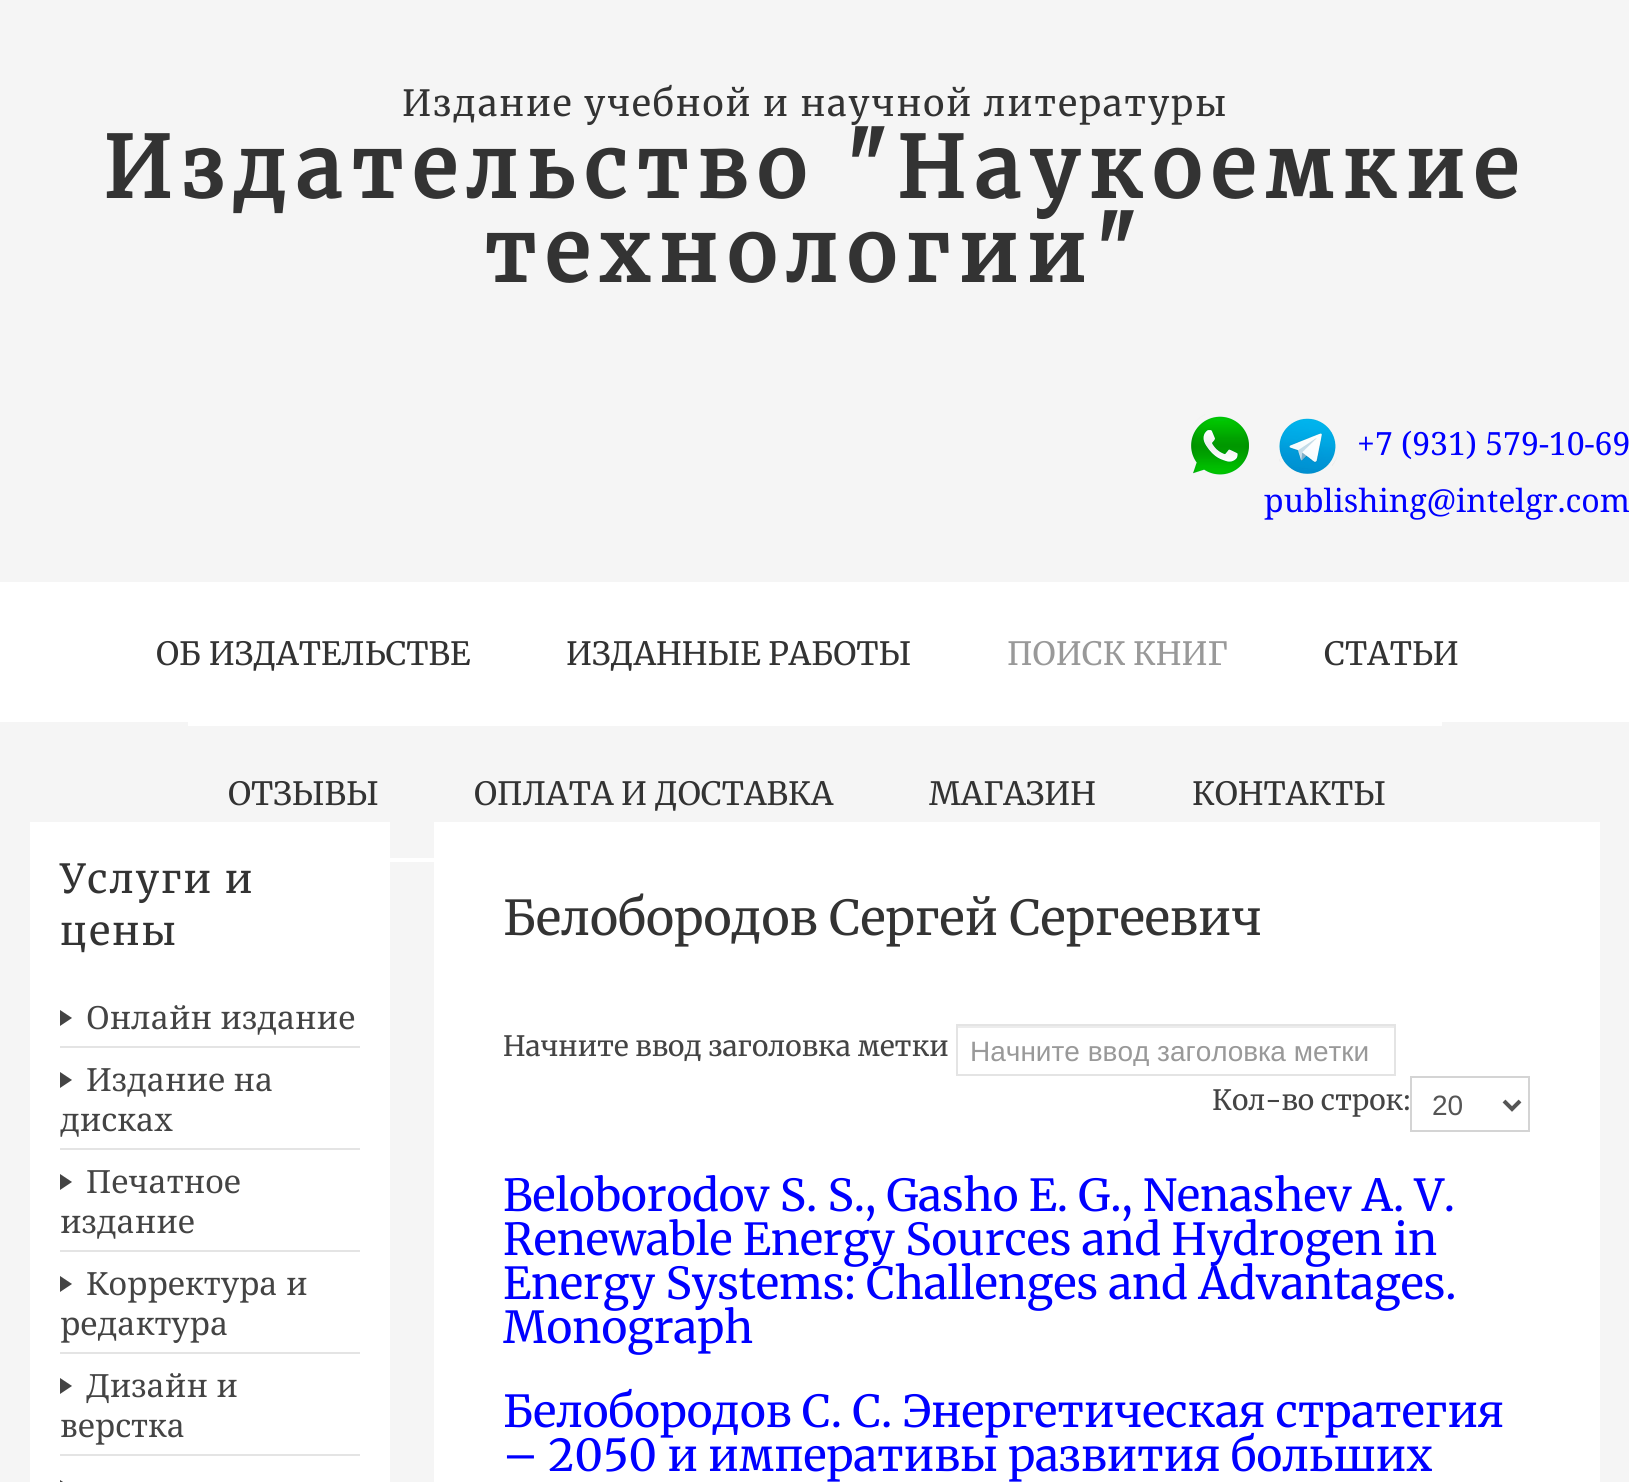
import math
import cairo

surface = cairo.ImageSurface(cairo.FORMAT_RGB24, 1629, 1482)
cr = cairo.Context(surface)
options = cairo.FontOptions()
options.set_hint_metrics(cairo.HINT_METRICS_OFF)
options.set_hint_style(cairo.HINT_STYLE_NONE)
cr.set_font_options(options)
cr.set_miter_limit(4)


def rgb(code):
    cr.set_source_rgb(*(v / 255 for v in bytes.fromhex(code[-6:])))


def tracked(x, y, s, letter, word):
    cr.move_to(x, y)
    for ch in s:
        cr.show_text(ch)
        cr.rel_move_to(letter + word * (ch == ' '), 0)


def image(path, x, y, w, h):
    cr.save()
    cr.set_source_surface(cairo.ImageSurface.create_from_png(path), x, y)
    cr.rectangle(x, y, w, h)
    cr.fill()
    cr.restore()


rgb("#f5f5f5")
cr.paint()
image("img/1.png", 1191, 414, 58, 61)
image("img/2.png", 1279, 418, 58, 56)
for x, y, w, h, color in [
    (0, 582, 1629, 140, "#ffffff"),
    (188, 722, 1254, 4, "#ffffff"),
    (390, 858, 44, 4, "#ffffff"),
    (30, 822, 360, 660, "#ffffff"),
    (60, 1046, 300, 2, "#e4e4e4"),
]:
    rgb(color)
    cr.rectangle(x, y, w, h)
    cr.fill()
rgb("#444444")
cr.new_path()
cr.move_to(60, 1026)
cr.line_to(60, 1010)
cr.line_to(72, 1018)
cr.close_path()
cr.fill()
rgb("#e4e4e4")
cr.rectangle(60, 1148, 300, 2)
cr.fill()
rgb("#444444")
cr.new_path()
cr.move_to(60, 1088)
cr.line_to(60, 1072)
cr.line_to(72, 1080)
cr.close_path()
cr.fill()
rgb("#e4e4e4")
cr.rectangle(60, 1250, 300, 2)
cr.fill()
rgb("#444444")
cr.new_path()
cr.move_to(60, 1190)
cr.line_to(60, 1174)
cr.line_to(72, 1182)
cr.close_path()
cr.fill()
rgb("#e4e4e4")
cr.rectangle(60, 1352, 300, 2)
cr.fill()
rgb("#444444")
cr.new_path()
cr.move_to(60, 1292)
cr.line_to(60, 1276)
cr.line_to(72, 1284)
cr.close_path()
cr.fill()
rgb("#e4e4e4")
cr.rectangle(60, 1454, 300, 2)
cr.fill()
rgb("#444444")
cr.new_path()
cr.move_to(60, 1394)
cr.line_to(60, 1378)
cr.line_to(72, 1386)
cr.close_path()
cr.fill()
cr.new_path()
cr.move_to(60, 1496)
cr.line_to(60, 1480)
cr.line_to(72, 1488)
cr.close_path()
cr.fill()
rgb("#ffffff")
cr.rectangle(434, 822, 1166, 660)
cr.fill()
rgb("#ececec")
cr.rectangle(958, 1026, 436, 2)
cr.fill()
cr.rectangle(957, 1025, 438, 50)
rgb("#e4e4e4")
cr.stroke()
cr.rectangle(1411, 1077, 118, 54)
rgb("#d4d4d4")
cr.stroke()
cr.new_path()
cr.move_to(1504, 1101)
cr.line_to(1512, 1109)
cr.line_to(1520, 1101)
rgb("#555555")
cr.set_line_width(4)
cr.stroke()
cr.select_font_face("Merriweather Light")
cr.set_font_size(36)
rgb("#333333")
tracked(402, 116, "Издание учебной и научной литературы", 2, 0)
cr.select_font_face("Merriweather", cairo.FONT_SLANT_NORMAL, cairo.FONT_WEIGHT_BOLD)
cr.set_font_size(84)
tracked(103, 198, "Издательство \"Наукоемкие", 10, 0)
tracked(484, 282, "технологии\"", 10, 0)
cr.select_font_face("Noto Serif")
cr.set_font_size(32)
rgb("#0000ff")
cr.move_to(1357, 455)
cr.show_text("+7 (931) 579-10-69")
cr.move_to(1264, 512)
cr.show_text("publishing@intelgr.com")
cr.select_font_face("Merriweather Light")
rgb("#333333")
cr.move_to(156, 665)
cr.show_text("ОБ ИЗДАТЕЛЬСТВЕ")
cr.move_to(566, 665)
cr.show_text("ИЗДАННЫЕ РАБОТЫ")
rgb("#999999")
cr.move_to(1007, 665)
cr.show_text("ПОИСК КНИГ")
rgb("#333333")
for x, y, s in [
    (1324, 665, "СТАТЬИ"),
    (228, 805, "ОТЗЫВЫ"),
    (474, 805, "ОПЛАТА И ДОСТАВКА"),
    (929, 805, "МАГАЗИН"),
    (1192, 805, "КОНТАКТЫ"),
]:
    cr.move_to(x, y)
    cr.show_text(s)
cr.set_font_size(40)
tracked(60, 893, "Услуги и", 2, 0)
tracked(60, 945, "цены", 2, 0)
cr.select_font_face("Noto Serif")
cr.set_font_size(32)
rgb("#444444")
for x, y, s in [
    (86, 1029, "Онлайн издание"),
    (86, 1091, "Издание на"),
    (60, 1131, "дисках"),
    (86, 1193, "Печатное"),
    (60, 1233, "издание"),
    (86, 1295, "Корректура и"),
    (60, 1335, "редактура"),
    (86, 1397, "Дизайн и"),
    (60, 1437, "верстка"),
]:
    cr.move_to(x, y)
    cr.show_text(s)
cr.select_font_face("Merriweather Light")
cr.set_font_size(48)
rgb("#333333")
cr.move_to(503, 935)
cr.show_text("Белобородов Сергей Сергеевич")
cr.set_font_size(28)
rgb("#444444")
cr.move_to(503, 1056)
cr.show_text("Начните ввод заголовка метки")
cr.save()
cr.rectangle(970, 1034, 412, 32)
cr.clip()
cr.select_font_face("Liberation Sans")
rgb("#999999")
cr.move_to(970, 1061)
cr.show_text("Начните ввод заголовка метки")
cr.restore()
cr.move_to(1212, 1110)
cr.show_text("Кол-во строк:")
cr.select_font_face("Liberation Sans")
rgb("#555555")
cr.move_to(1432, 1115)
cr.show_text("20")
cr.select_font_face("Merriweather Light")
cr.set_font_size(44)
rgb("#0000ff")
for x, y, s in [
    (503, 1211, "Beloborodov S. S., Gasho E. G., Nenashev A. V."),
    (503, 1255, "Renewable Energy Sources and Hydrogen in"),
    (503, 1299, "Energy Systems: Challenges and Advantages."),
    (503, 1343, "Monograph"),
    (503, 1427, "Белобородов С. С. Энергетическая стратегия"),
    (503, 1471, "– 2050 и императивы развития больших"),
]:
    cr.move_to(x, y)
    cr.show_text(s)
surface.write_to_png("page.png")
